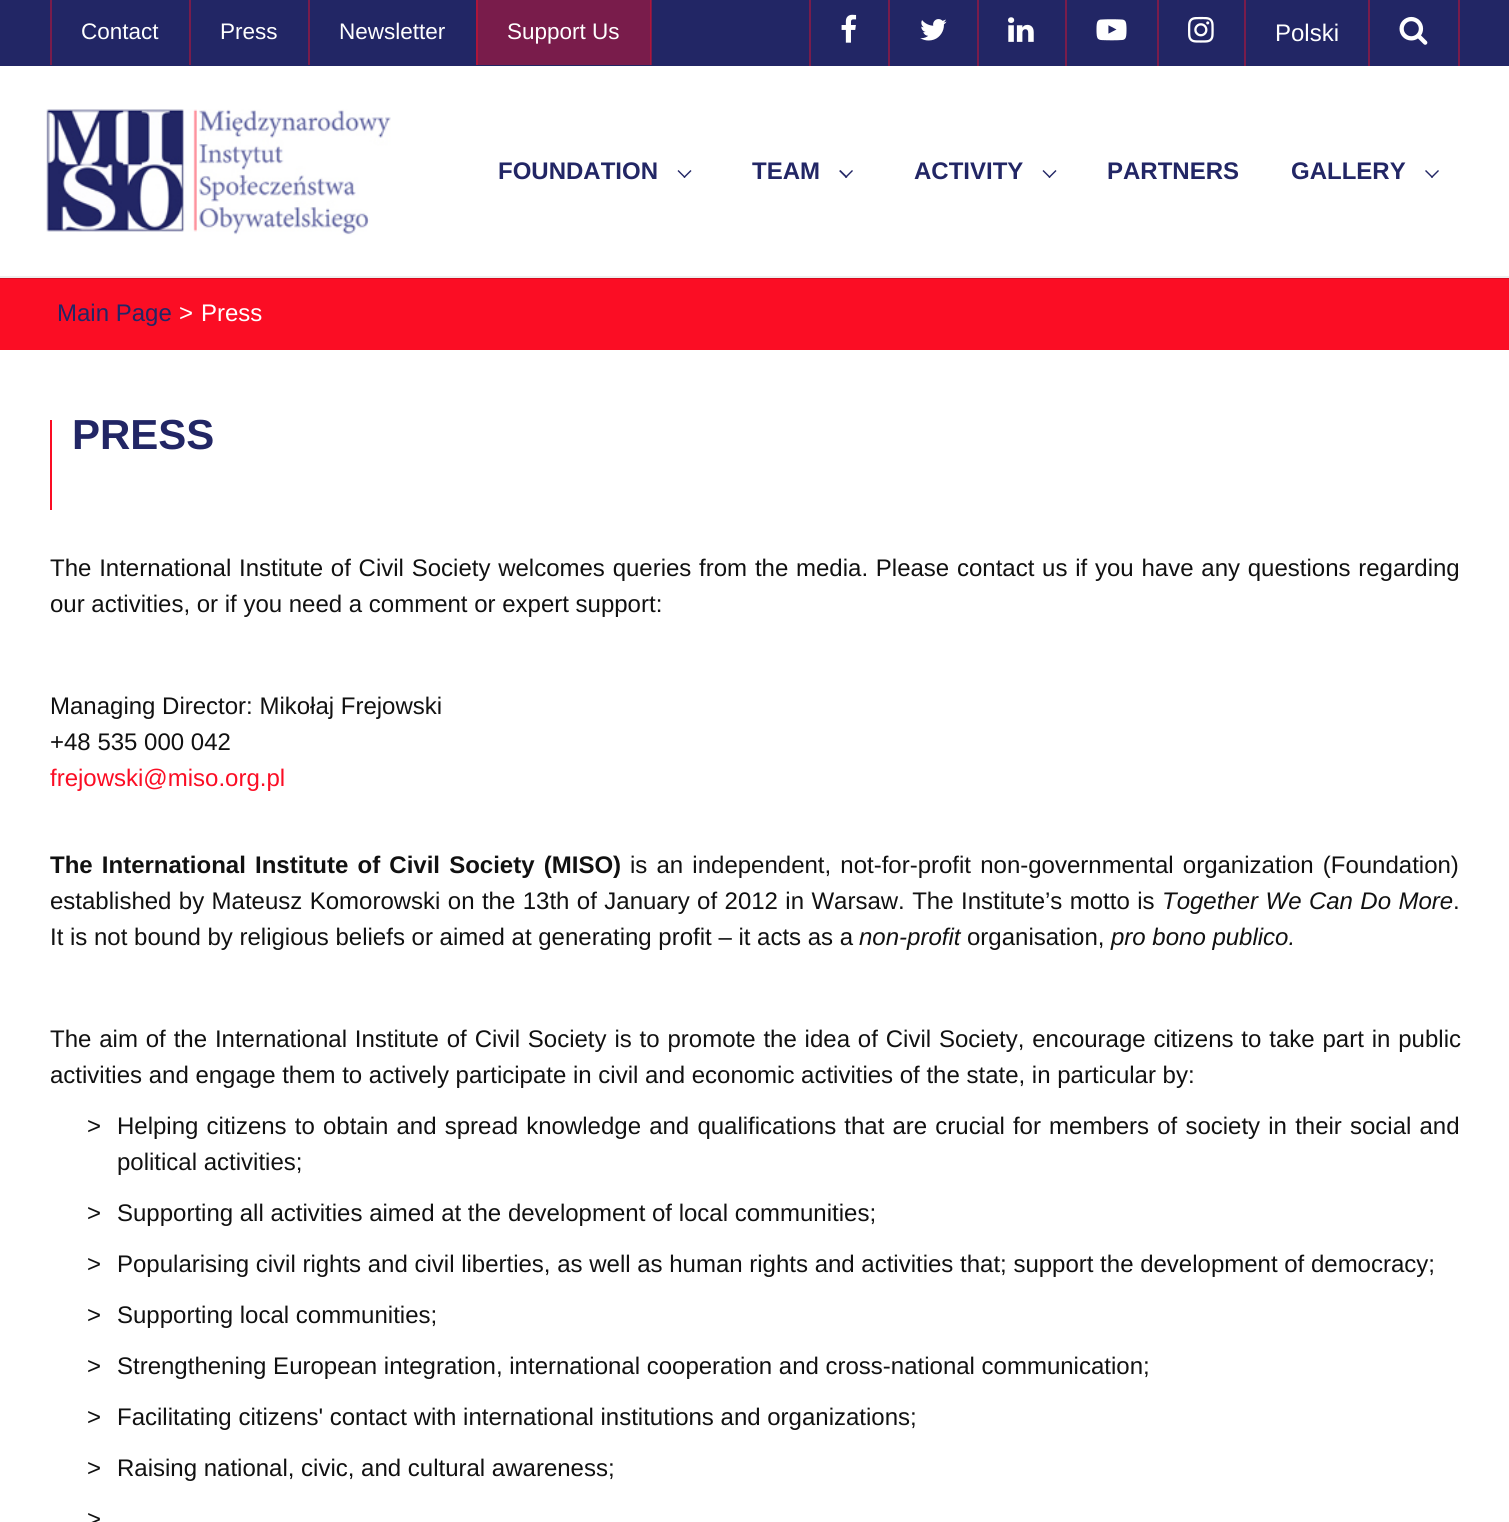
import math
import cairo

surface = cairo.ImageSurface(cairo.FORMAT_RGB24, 1509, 1522)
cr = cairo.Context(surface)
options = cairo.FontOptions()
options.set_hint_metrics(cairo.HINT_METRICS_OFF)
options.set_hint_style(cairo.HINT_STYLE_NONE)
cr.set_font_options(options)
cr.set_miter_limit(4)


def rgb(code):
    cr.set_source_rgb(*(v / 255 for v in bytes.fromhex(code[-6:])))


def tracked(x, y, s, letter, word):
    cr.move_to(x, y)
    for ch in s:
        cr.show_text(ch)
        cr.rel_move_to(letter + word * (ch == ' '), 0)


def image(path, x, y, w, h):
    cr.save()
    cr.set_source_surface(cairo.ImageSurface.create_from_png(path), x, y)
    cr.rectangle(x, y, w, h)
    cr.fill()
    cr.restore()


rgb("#ffffff")
cr.paint()
for x, y, w, h, color in [
    (0, 0, 1509, 66, "#222665"),
    (651, 0, 1, 65, "#791c4b"),
    (50, 0, 2, 65, "#791c4b"),
    (189, 0, 2, 65, "#791c4b"),
    (308, 0, 2, 65, "#791c4b"),
    (478, 0, 172, 65, "#791c4b"),
    (650, 0, 1, 65, "#ad163b"),
    (476, 0, 2, 65, "#ad163b"),
    (809, 0, 2, 66, "#791c4b"),
]:
    rgb(color)
    cr.rectangle(x, y, w, h)
    cr.fill()
image("img/1.png", 841, 14, 16, 29)
cr.rectangle(888, 0, 2, 66)
cr.fill()
image("img/2.png", 920, 19, 27, 22)
cr.rectangle(977, 0, 2, 66)
cr.fill()
image("img/3.png", 1008, 17, 26, 25)
cr.rectangle(1065, 0, 2, 66)
cr.fill()
image("img/4.png", 1096, 19, 31, 22)
cr.rectangle(1157, 0, 2, 66)
cr.fill()
image("img/5.png", 1188, 16, 26, 27)
for x, y, w, h, color in [
    (1244, 0, 2, 66, "#791c4b"),
    (1458, 0, 2, 66, "#791c4b"),
    (1368, 0, 2, 66, "#791c4b"),
]:
    rgb(color)
    cr.rectangle(x, y, w, h)
    cr.fill()
image("img/6.png", 1399, 16, 29, 29)
rgb("#d50b1f")
cr.rectangle(0, 278, 1509, 1)
cr.fill()
rgb("#eeeeee")
cr.rectangle(0, 276, 1509, 2)
cr.fill()
image("img/7.png", 46, 109, 345, 126)
rgb("#222665")
cr.new_path()
cr.move_to(684.5, 178)
cr.line_to(677.5, 171)
cr.line_to(678.5, 170)
cr.line_to(685.5, 177)
cr.close_path()
cr.fill()
cr.new_path()
cr.move_to(684.5, 178)
cr.line_to(683.5, 177)
cr.line_to(690.5, 170)
cr.line_to(691.5, 171)
cr.close_path()
cr.fill()
cr.new_path()
cr.move_to(846, 178)
cr.line_to(839, 171)
cr.line_to(840.5, 170)
cr.line_to(847.5, 177)
cr.close_path()
cr.fill()
cr.new_path()
cr.move_to(846, 178)
cr.line_to(845, 177)
cr.line_to(852, 170)
cr.line_to(853, 171)
cr.close_path()
cr.fill()
cr.new_path()
cr.move_to(1049.5, 178)
cr.line_to(1042.5, 171)
cr.line_to(1043.5, 170)
cr.line_to(1050.5, 177)
cr.close_path()
cr.fill()
cr.new_path()
cr.move_to(1049.5, 178)
cr.line_to(1048.5, 177)
cr.line_to(1055.5, 170)
cr.line_to(1056.5, 171)
cr.close_path()
cr.fill()
cr.new_path()
cr.move_to(1432, 178)
cr.line_to(1425, 171)
cr.line_to(1426, 170)
cr.line_to(1433, 177)
cr.close_path()
cr.fill()
cr.new_path()
cr.move_to(1432, 178)
cr.line_to(1431, 177)
cr.line_to(1438, 170)
cr.line_to(1439, 171)
cr.close_path()
cr.fill()
rgb("#fb0d24")
cr.rectangle(0, 279, 1509, 71)
cr.fill()
cr.rectangle(50, 420, 2, 90)
cr.fill()
cr.select_font_face("Liberation Sans")
cr.set_font_size(22.5)
rgb("#ffffff")
for x, y, s in [
    (81, 39, "Contact"),
    (220, 39, "Press"),
    (339, 39, "Newsletter"),
    (507, 39, "Support Us"),
]:
    cr.move_to(x, y)
    cr.show_text(s)
cr.set_font_size(24)
cr.move_to(1275, 41)
cr.show_text("Polski")
cr.select_font_face("Liberation Sans", cairo.FONT_SLANT_NORMAL, cairo.FONT_WEIGHT_BOLD)
rgb("#222665")
for x, y, s in [
    (498, 179, "FOUNDATION"),
    (752, 179, "TEAM"),
    (914, 179, "ACTIVITY"),
    (1107, 179, "PARTNERS"),
    (1291, 179, "GALLERY"),
]:
    cr.move_to(x, y)
    cr.show_text(s)
cr.select_font_face("Liberation Sans")
cr.move_to(57, 321)
cr.show_text("Main Page")
rgb("#ffffff")
cr.move_to(179, 321)
cr.show_text(">")
cr.move_to(201, 321)
cr.show_text("Press")
cr.select_font_face("Liberation Sans", cairo.FONT_SLANT_NORMAL, cairo.FONT_WEIGHT_BOLD)
cr.set_font_size(42)
rgb("#222665")
cr.move_to(72, 449)
cr.show_text("PRESS")
cr.select_font_face("Liberation Sans")
cr.set_font_size(24)
rgb("#111111")
tracked(50, 576, "The International Institute of Civil Society welcomes queries from the media. Please contact us if you have any questions regarding", 0, 1.1)
for x, y, s in [
    (50, 612, "our activities, or if you need a comment or expert support:"),
    (50, 714, "Managing Director: Mikołaj Frejowski"),
    (50, 750, "+48 535 000 042"),
]:
    cr.move_to(x, y)
    cr.show_text(s)
rgb("#fb0d24")
cr.move_to(50, 786)
cr.show_text("frejowski@miso.org.pl")
cr.select_font_face("Liberation Sans", cairo.FONT_SLANT_NORMAL, cairo.FONT_WEIGHT_BOLD)
rgb("#111111")
tracked(50, 873, "The International Institute of Civil Society (MISO)", 0, 2.5)
cr.select_font_face("Liberation Sans")
tracked(630, 873, "is an independent, not-for-profit non-governmental organization (Foundation)", 0, 2.5)
tracked(50, 909, "established by Mateusz Komorowski on the 13th of January of 2012 in Warsaw. The Institute’s motto is", 0, 0.75)
cr.select_font_face("Liberation Sans", cairo.FONT_SLANT_ITALIC)
tracked(1162, 909, "Together We Can Do More", 0, 0.75)
cr.select_font_face("Liberation Sans")
cr.move_to(1453, 909)
cr.show_text(".")
cr.move_to(50, 945)
cr.show_text("It is not bound by religious beliefs or aimed at generating profit – it acts as a")
cr.select_font_face("Liberation Sans", cairo.FONT_SLANT_ITALIC)
cr.move_to(859, 945)
cr.show_text("non-profit")
cr.select_font_face("Liberation Sans")
cr.move_to(967, 945)
cr.show_text("organisation,")
cr.select_font_face("Liberation Sans", cairo.FONT_SLANT_ITALIC)
cr.move_to(1111, 945)
cr.show_text("pro bono publico.")
cr.select_font_face("Liberation Sans")
tracked(50, 1047, "The aim of the International Institute of Civil Society is to promote the idea of Civil Society, encourage citizens to take part in public", 0, 1.2)
cr.move_to(50, 1083)
cr.show_text("activities and engage them to actively participate in civil and economic activities of the state, in particular by:")
cr.move_to(87, 1134)
cr.show_text(">")
tracked(117, 1134, "Helping citizens to obtain and spread knowledge and qualifications that are crucial for members of society in their social and", 0, 1.5)
for x, y, s in [
    (117, 1170, "political activities;"),
    (87, 1221, ">"),
    (117, 1221, "Supporting all activities aimed at the development of local communities;"),
    (87, 1272, ">"),
    (117, 1272, "Popularising civil rights and civil liberties, as well as human rights and activities that; support the development of democracy;"),
    (87, 1323, ">"),
    (117, 1323, "Supporting local communities;"),
    (87, 1374, ">"),
    (117, 1374, "Strengthening European integration, international cooperation and cross-national communication;"),
    (87, 1425, ">"),
    (117, 1425, "Facilitating citizens' contact with international institutions and organizations;"),
    (87, 1476, ">"),
    (117, 1476, "Raising national, civic, and cultural awareness;"),
    (87, 1527, ">"),
]:
    cr.move_to(x, y)
    cr.show_text(s)
surface.write_to_png("page.png")
